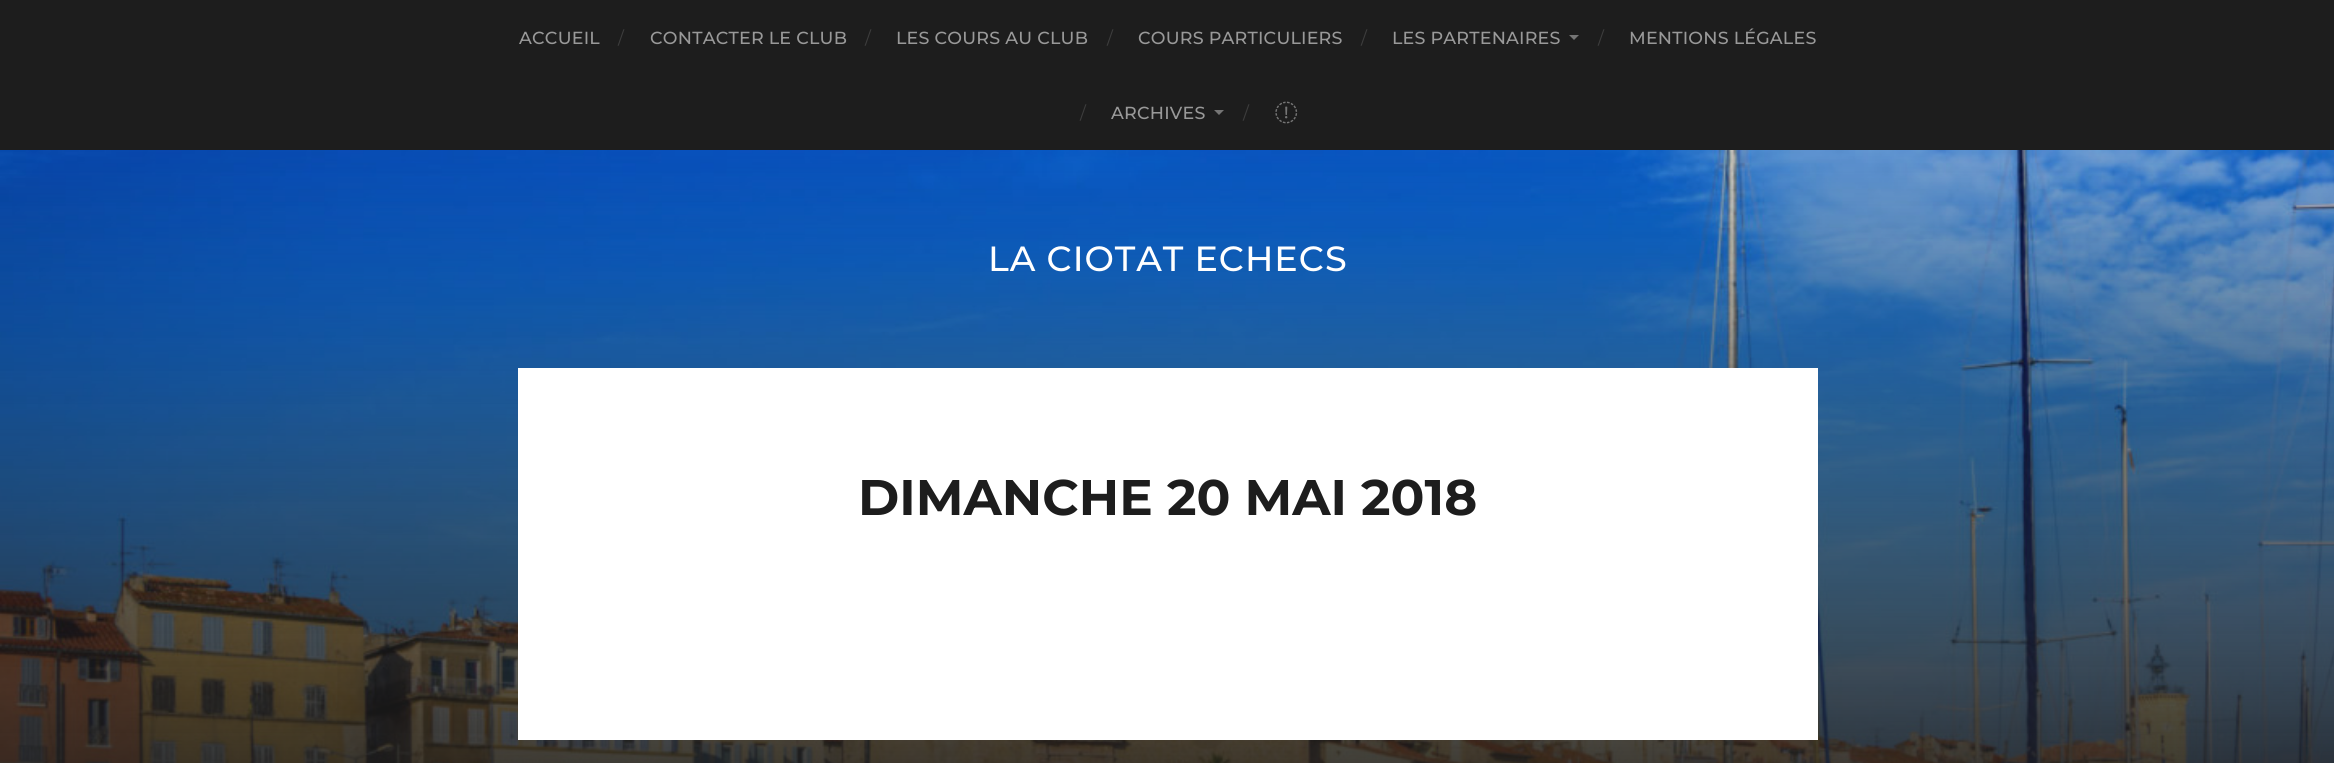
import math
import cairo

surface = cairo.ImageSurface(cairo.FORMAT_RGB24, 2334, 763)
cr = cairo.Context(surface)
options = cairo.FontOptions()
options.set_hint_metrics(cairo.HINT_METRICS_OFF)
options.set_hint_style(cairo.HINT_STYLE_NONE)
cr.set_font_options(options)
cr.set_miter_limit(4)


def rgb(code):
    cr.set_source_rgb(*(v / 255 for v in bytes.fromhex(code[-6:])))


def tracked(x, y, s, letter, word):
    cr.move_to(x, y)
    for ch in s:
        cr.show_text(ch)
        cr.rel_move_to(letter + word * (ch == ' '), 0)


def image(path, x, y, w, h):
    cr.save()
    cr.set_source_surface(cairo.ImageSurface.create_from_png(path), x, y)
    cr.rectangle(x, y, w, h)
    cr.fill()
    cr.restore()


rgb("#1d1d1d")
cr.paint()
rgb("#757575")
cr.new_path()
cr.move_to(1569, 35)
cr.line_to(1579, 35)
cr.line_to(1574, 40)
cr.close_path()
cr.fill()
cr.new_path()
cr.move_to(1214, 110)
cr.line_to(1224, 110)
cr.line_to(1219, 115)
cr.close_path()
cr.fill()
image("img/1.png", 1275, 101, 23, 23)
image("img/2.png", 0, 150, 2334, 613)
rgb("#ffffff")
cr.rectangle(518, 368, 1300, 372)
cr.fill()
cr.select_font_face("Montserrat Thin")
cr.set_font_size(17.5)
rgb("#999999")
tracked(519, 44, "ACCUEIL", 0.2, 0)
cr.select_font_face("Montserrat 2 Thin")
rgb("#3d3d3d")
cr.move_to(618, 44)
cr.show_text("/")
cr.select_font_face("Montserrat Thin")
rgb("#999999")
tracked(650, 44, "CONTACTER LE CLUB", 0.2, 0)
cr.select_font_face("Montserrat 2 Thin")
rgb("#3d3d3d")
cr.move_to(865, 44)
cr.show_text("/")
cr.select_font_face("Montserrat Thin")
rgb("#999999")
tracked(896, 44, "LES COURS AU CLUB", 0.2, 0)
cr.select_font_face("Montserrat 2 Thin")
rgb("#3d3d3d")
cr.move_to(1107, 44)
cr.show_text("/")
cr.select_font_face("Montserrat Thin")
rgb("#999999")
tracked(1138, 44, "COURS PARTICULIERS", 0.2, 0)
cr.select_font_face("Montserrat 2 Thin")
rgb("#3d3d3d")
cr.move_to(1361, 44)
cr.show_text("/")
cr.select_font_face("Montserrat Thin")
rgb("#999999")
tracked(1392, 44, "LES PARTENAIRES", 0.2, 0)
cr.select_font_face("Montserrat 2 Thin")
rgb("#3d3d3d")
cr.move_to(1598, 44)
cr.show_text("/")
cr.select_font_face("Montserrat Thin")
rgb("#999999")
tracked(1629, 44, "MENTIONS LÉGALES", 0.2, 0)
cr.select_font_face("Montserrat 2 Thin")
rgb("#3d3d3d")
cr.move_to(1080, 119)
cr.show_text("/")
cr.select_font_face("Montserrat Thin")
rgb("#999999")
tracked(1111, 119, "ARCHIVES", 0.2, 0)
cr.select_font_face("Montserrat 2 Thin")
rgb("#3d3d3d")
cr.move_to(1243, 119)
cr.show_text("/")
cr.select_font_face("Montserrat Thin")
cr.set_font_size(35)
rgb("#ffffff")
tracked(988, 271, "LA CIOTAT ECHECS", 0.9, 0)
cr.select_font_face("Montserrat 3 Thin")
cr.set_font_size(50)
rgb("#1d1d1d")
cr.move_to(858, 515)
cr.show_text("DIMANCHE 20 MAI 2018")
surface.write_to_png("page.png")
